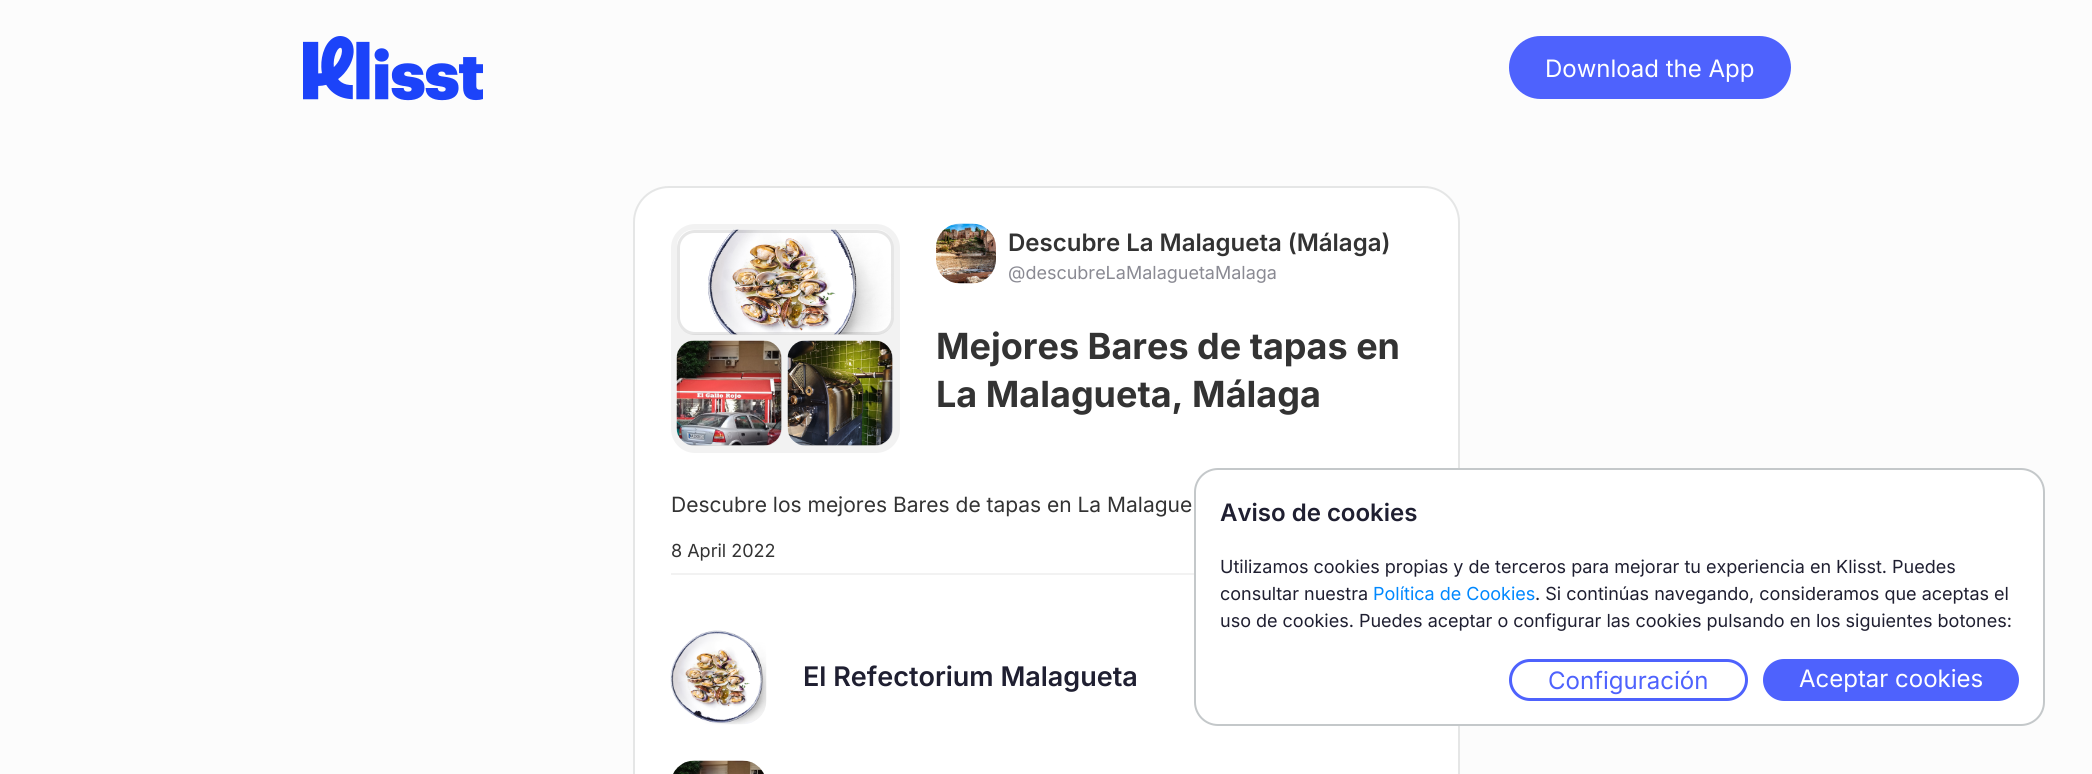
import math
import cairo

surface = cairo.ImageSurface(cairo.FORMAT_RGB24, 2092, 774)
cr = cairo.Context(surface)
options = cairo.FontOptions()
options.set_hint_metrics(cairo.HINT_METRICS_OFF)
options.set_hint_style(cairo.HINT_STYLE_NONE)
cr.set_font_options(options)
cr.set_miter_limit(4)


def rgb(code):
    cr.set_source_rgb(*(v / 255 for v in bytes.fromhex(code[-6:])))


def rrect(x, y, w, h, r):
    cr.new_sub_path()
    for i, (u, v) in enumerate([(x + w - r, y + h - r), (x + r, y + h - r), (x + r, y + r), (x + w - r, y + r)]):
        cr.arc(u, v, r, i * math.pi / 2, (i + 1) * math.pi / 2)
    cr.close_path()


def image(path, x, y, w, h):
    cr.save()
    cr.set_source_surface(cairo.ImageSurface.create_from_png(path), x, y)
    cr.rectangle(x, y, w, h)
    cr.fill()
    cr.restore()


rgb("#fcfcfc")
cr.paint()
image("img/1.png", 303, 36, 180, 65)
rgb("#4e62fd")
rrect(1509, 36, 282, 63, 31.5)
cr.fill()
rgb("#ffffff")
rrect(634, 187, 825, 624, 35)
cr.fill_preserve()
rgb("#e5e6e6")
cr.stroke()
rgb("#f2f2f2")
rrect(671, 224, 229, 229, 24)
cr.fill()
image("img/2.png", 677, 229, 217, 106)
rrect(678.5, 231.5, 214, 102, 16.5)
cr.set_source_rgba(0, 0, 0, 0.1)
cr.set_line_width(3)
cr.stroke()
image("img/3.png", 676, 340, 106, 106)
rrect(678.5, 342.5, 102, 102, 16.5)
cr.stroke()
image("img/4.png", 787, 340, 106, 106)
rrect(789.5, 342.5, 102, 102, 16.5)
cr.stroke()
image("img/5.png", 936, 223, 60, 61)
rgb("#f2f2f2")
cr.rectangle(671, 573, 523, 2)
cr.fill()
image("img/6.png", 670, 630, 97, 95)
image("img/7.png", 673, 760, 91, 14)
rgb("#ffffff")
rrect(1195, 469, 849, 256, 23)
cr.fill_preserve()
rgb("#c4c8ca")
cr.set_line_width(2)
cr.stroke()
rrect(1510.5, 660.5, 236, 39, 19.5)
rgb("#4e62fd")
cr.set_line_width(3)
cr.stroke()
rrect(1763, 659, 256, 42, 21)
cr.fill()
cr.select_font_face("Inter")
cr.set_font_size(24)
rgb("#ffffff")
cr.move_to(1545, 77)
cr.show_text("Download the App")
cr.select_font_face("Inter SemiBold")
rgb("#333333")
cr.move_to(1008, 251)
cr.show_text("Descubre La Malagueta (Málaga)")
cr.select_font_face("Inter")
cr.set_font_size(18)
rgb("#8a8a93")
cr.move_to(1008, 279)
cr.show_text("@descubreLaMalaguetaMalaga")
cr.select_font_face("Inter", cairo.FONT_SLANT_NORMAL, cairo.FONT_WEIGHT_BOLD)
cr.set_font_size(36)
rgb("#333333")
cr.move_to(936, 359)
cr.show_text("Mejores Bares de tapas en")
cr.move_to(936, 407)
cr.show_text("La Malagueta, Málaga")
cr.select_font_face("Inter")
cr.set_font_size(21)
cr.move_to(671, 512)
cr.show_text("Descubre los mejores Bares de tapas en La Malague")
cr.set_font_size(18)
cr.move_to(671, 557)
cr.show_text("8 April 2022")
cr.select_font_face("Inter SemiBold")
cr.set_font_size(27)
rgb("#1f1f31")
cr.move_to(803, 686)
cr.show_text("El Refectorium Malagueta")
cr.set_font_size(24)
cr.move_to(1220, 521)
cr.show_text("Aviso de cookies")
cr.select_font_face("Inter")
cr.set_font_size(18)
cr.move_to(1220, 573)
cr.show_text("Utilizamos cookies propias y de terceros para mejorar tu experiencia en Klisst. Puedes")
cr.move_to(1220, 600)
cr.show_text("consultar nuestra")
rgb("#0088ff")
cr.move_to(1373, 600)
cr.show_text("Política de Cookies")
rgb("#1f1f31")
cr.move_to(1535, 600)
cr.show_text(". Si continúas navegando, consideramos que aceptas el")
cr.move_to(1220, 627)
cr.show_text("uso de cookies. Puedes aceptar o configurar las cookies pulsando en los siguientes botones:")
cr.set_font_size(24)
rgb("#4e62fd")
cr.move_to(1548, 689)
cr.show_text("Configuración")
rgb("#ffffff")
cr.move_to(1799, 687)
cr.show_text("Aceptar cookies")
surface.write_to_png("page.png")
